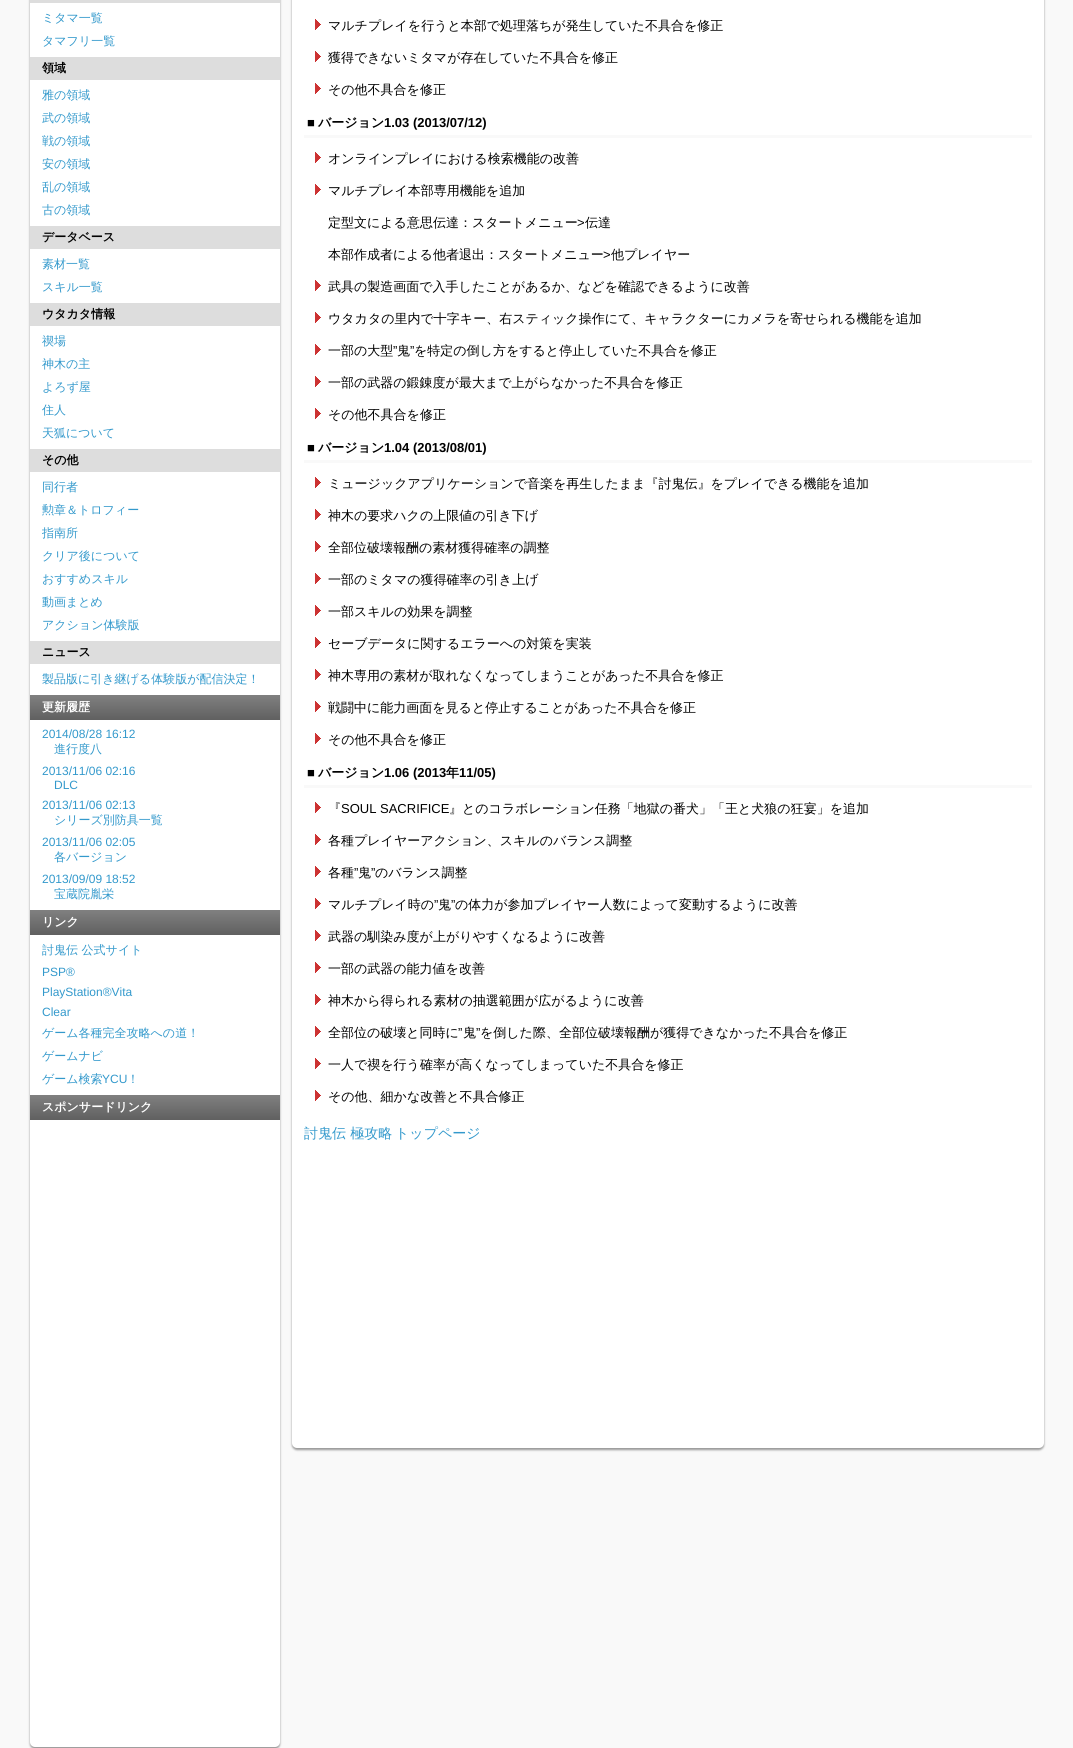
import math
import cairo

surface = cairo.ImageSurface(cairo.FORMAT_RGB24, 1073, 1748)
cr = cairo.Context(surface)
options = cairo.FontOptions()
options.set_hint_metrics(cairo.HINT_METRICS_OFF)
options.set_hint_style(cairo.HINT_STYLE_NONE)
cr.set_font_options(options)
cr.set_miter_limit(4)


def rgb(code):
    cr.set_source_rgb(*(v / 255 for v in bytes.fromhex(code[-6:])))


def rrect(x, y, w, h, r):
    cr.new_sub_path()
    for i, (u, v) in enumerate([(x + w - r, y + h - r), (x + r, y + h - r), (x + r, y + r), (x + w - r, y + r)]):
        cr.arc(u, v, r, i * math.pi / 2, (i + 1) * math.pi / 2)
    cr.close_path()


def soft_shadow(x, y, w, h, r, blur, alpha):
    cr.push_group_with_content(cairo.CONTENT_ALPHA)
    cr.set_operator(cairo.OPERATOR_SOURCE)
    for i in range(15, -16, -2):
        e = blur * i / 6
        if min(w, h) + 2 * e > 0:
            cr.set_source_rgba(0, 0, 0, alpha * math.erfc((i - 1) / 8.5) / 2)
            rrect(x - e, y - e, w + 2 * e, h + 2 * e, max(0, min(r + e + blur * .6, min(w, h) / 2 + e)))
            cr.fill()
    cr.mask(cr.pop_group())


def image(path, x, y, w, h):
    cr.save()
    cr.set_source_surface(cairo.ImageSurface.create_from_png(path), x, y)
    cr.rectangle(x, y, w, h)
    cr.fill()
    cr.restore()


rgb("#f9f9f9")
cr.paint()
rgb("#999999")
soft_shadow(30, -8, 250, 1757, 5, 1, 1)
rgb("#ffffff")
rrect(30, -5, 250, 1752, 5)
cr.fill()
for x, y, w, h, color in [
    (30, 0, 250, 3, "#dddddd"),
    (30, 57, 250, 23, "#dddddd"),
    (30, 226, 250, 23, "#dddddd"),
    (30, 303, 250, 23, "#dddddd"),
    (30, 449, 250, 23, "#dddddd"),
    (30, 641, 250, 23, "#dddddd"),
]:
    rgb(color)
    cr.rectangle(x, y, w, h)
    cr.fill()
gradient = cairo.LinearGradient(155, 695, 155, 720)
gradient.add_color_stop_rgba(0, 0.502, 0.502, 0.502, 1)
gradient.add_color_stop_rgba(1, 0.376, 0.376, 0.376, 1)
cr.set_source(gradient)
cr.rectangle(30, 695, 250, 25)
cr.fill()
gradient = cairo.LinearGradient(155, 910, 155, 935)
gradient.add_color_stop_rgba(0, 0.502, 0.502, 0.502, 1)
gradient.add_color_stop_rgba(1, 0.376, 0.376, 0.376, 1)
cr.set_source(gradient)
cr.rectangle(30, 910, 250, 25)
cr.fill()
gradient = cairo.LinearGradient(155, 1095, 155, 1120)
gradient.add_color_stop_rgba(0, 0.502, 0.502, 0.502, 1)
gradient.add_color_stop_rgba(1, 0.376, 0.376, 0.376, 1)
cr.set_source(gradient)
cr.rectangle(30, 1095, 250, 25)
cr.fill()
rgb("#999999")
soft_shadow(292, -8, 752, 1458, 5, 1, 1)
rgb("#ffffff")
rrect(292, -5, 752, 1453, 5)
cr.fill()
image("img/1.png", 315, 19, 6, 11)
image("img/1.png", 315, 51, 6, 11)
image("img/1.png", 315, 83, 6, 11)
rgb("#f9f9f9")
cr.rectangle(304, 135, 728, 3)
cr.fill()
image("img/1.png", 315, 152, 6, 11)
image("img/1.png", 315, 184, 6, 11)
image("img/1.png", 315, 280, 6, 11)
image("img/1.png", 315, 312, 6, 11)
image("img/1.png", 315, 344, 6, 11)
image("img/1.png", 315, 376, 6, 11)
image("img/1.png", 315, 408, 6, 11)
cr.rectangle(304, 460, 728, 3)
cr.fill()
image("img/1.png", 315, 477, 6, 11)
image("img/1.png", 315, 509, 6, 11)
image("img/1.png", 315, 541, 6, 11)
image("img/1.png", 315, 573, 6, 11)
image("img/1.png", 315, 605, 6, 11)
image("img/1.png", 315, 637, 6, 11)
image("img/1.png", 315, 669, 6, 11)
image("img/1.png", 315, 701, 6, 11)
image("img/1.png", 315, 733, 6, 11)
cr.rectangle(304, 785, 728, 3)
cr.fill()
image("img/1.png", 315, 802, 6, 11)
image("img/1.png", 315, 834, 6, 11)
image("img/1.png", 315, 866, 6, 11)
image("img/1.png", 315, 898, 6, 11)
image("img/1.png", 315, 930, 6, 11)
image("img/1.png", 315, 962, 6, 11)
image("img/1.png", 315, 994, 6, 11)
image("img/1.png", 315, 1026, 6, 11)
image("img/1.png", 315, 1058, 6, 11)
image("img/1.png", 315, 1090, 6, 11)
cr.select_font_face("WenQuanYi Zen Hei Medium")
cr.set_font_size(12)
rgb("#3399cc")
cr.move_to(42, 22)
cr.show_text("ミタマ一覧")
cr.move_to(42, 45)
cr.show_text("タマフリ一覧")
cr.select_font_face("WenQuanYi Zen Hei", cairo.FONT_SLANT_NORMAL, cairo.FONT_WEIGHT_BOLD)
rgb("#000000")
cr.move_to(42, 72)
cr.show_text("領域")
cr.select_font_face("WenQuanYi Zen Hei Medium")
rgb("#3399cc")
for x, y, s in [
    (42, 99, "雅の領域"),
    (42, 122, "武の領域"),
    (42, 145, "戦の領域"),
    (42, 168, "安の領域"),
    (42, 191, "乱の領域"),
    (42, 214, "古の領域"),
]:
    cr.move_to(x, y)
    cr.show_text(s)
cr.select_font_face("WenQuanYi Zen Hei", cairo.FONT_SLANT_NORMAL, cairo.FONT_WEIGHT_BOLD)
rgb("#000000")
cr.move_to(42, 241)
cr.show_text("データベース")
cr.select_font_face("WenQuanYi Zen Hei Medium")
rgb("#3399cc")
cr.move_to(42, 268)
cr.show_text("素材一覧")
cr.move_to(42, 291)
cr.show_text("スキル一覧")
cr.select_font_face("WenQuanYi Zen Hei", cairo.FONT_SLANT_NORMAL, cairo.FONT_WEIGHT_BOLD)
rgb("#000000")
cr.move_to(42, 318)
cr.show_text("ウタカタ情報")
cr.select_font_face("WenQuanYi Zen Hei Medium")
rgb("#3399cc")
for x, y, s in [
    (42, 345, "禊場"),
    (42, 368, "神木の主"),
    (42, 391, "よろず屋"),
    (42, 414, "住人"),
    (42, 437, "天狐について"),
]:
    cr.move_to(x, y)
    cr.show_text(s)
cr.select_font_face("WenQuanYi Zen Hei", cairo.FONT_SLANT_NORMAL, cairo.FONT_WEIGHT_BOLD)
rgb("#000000")
cr.move_to(42, 464)
cr.show_text("その他")
cr.select_font_face("WenQuanYi Zen Hei Medium")
rgb("#3399cc")
for x, y, s in [
    (42, 491, "同行者"),
    (42, 514, "勲章＆トロフィー"),
    (42, 537, "指南所"),
    (42, 560, "クリア後について"),
    (42, 583, "おすすめスキル"),
    (42, 606, "動画まとめ"),
    (42, 629, "アクション体験版"),
]:
    cr.move_to(x, y)
    cr.show_text(s)
cr.select_font_face("WenQuanYi Zen Hei", cairo.FONT_SLANT_NORMAL, cairo.FONT_WEIGHT_BOLD)
rgb("#000000")
cr.move_to(42, 656)
cr.show_text("ニュース")
cr.select_font_face("WenQuanYi Zen Hei Medium")
rgb("#3399cc")
cr.move_to(42, 683)
cr.show_text("製品版に引き継げる体験版が配信決定！")
cr.select_font_face("WenQuanYi Zen Hei", cairo.FONT_SLANT_NORMAL, cairo.FONT_WEIGHT_BOLD)
rgb("#ffffff")
cr.move_to(42, 711)
cr.show_text("更新履歴")
cr.select_font_face("Liberation Sans")
rgb("#3399cc")
cr.move_to(42, 738)
cr.show_text("2014/08/28 16:12")
cr.select_font_face("WenQuanYi Zen Hei Medium")
cr.move_to(54, 753)
cr.show_text("進行度八")
cr.select_font_face("Liberation Sans")
for x, y, s in [
    (42, 775, "2013/11/06 02:16"),
    (54, 789, "DLC"),
    (42, 809, "2013/11/06 02:13"),
]:
    cr.move_to(x, y)
    cr.show_text(s)
cr.select_font_face("WenQuanYi Zen Hei Medium")
cr.move_to(54, 824)
cr.show_text("シリーズ別防具一覧")
cr.select_font_face("Liberation Sans")
cr.move_to(42, 846)
cr.show_text("2013/11/06 02:05")
cr.select_font_face("WenQuanYi Zen Hei Medium")
cr.move_to(54, 861)
cr.show_text("各バージョン")
cr.select_font_face("Liberation Sans")
cr.move_to(42, 883)
cr.show_text("2013/09/09 18:52")
cr.select_font_face("WenQuanYi Zen Hei Medium")
cr.move_to(54, 898)
cr.show_text("宝蔵院胤栄")
cr.select_font_face("WenQuanYi Zen Hei", cairo.FONT_SLANT_NORMAL, cairo.FONT_WEIGHT_BOLD)
rgb("#ffffff")
cr.move_to(42, 926)
cr.show_text("リンク")
cr.select_font_face("WenQuanYi Zen Hei Medium")
rgb("#3399cc")
cr.move_to(42, 954)
cr.show_text("討鬼伝 公式サイト")
cr.select_font_face("Liberation Sans")
for x, y, s in [
    (42, 976, "PSP®"),
    (42, 996, "PlayStation®Vita"),
    (42, 1016, "Clear"),
]:
    cr.move_to(x, y)
    cr.show_text(s)
cr.select_font_face("WenQuanYi Zen Hei Medium")
for x, y, s in [
    (42, 1037, "ゲーム各種完全攻略への道！"),
    (42, 1060, "ゲームナビ"),
    (42, 1083, "ゲーム検索"),
]:
    cr.move_to(x, y)
    cr.show_text(s)
cr.select_font_face("Liberation Sans")
cr.move_to(102, 1083)
cr.show_text("YCU")
cr.select_font_face("WenQuanYi Zen Hei Medium")
cr.move_to(127, 1083)
cr.show_text("！")
cr.select_font_face("WenQuanYi Zen Hei", cairo.FONT_SLANT_NORMAL, cairo.FONT_WEIGHT_BOLD)
rgb("#ffffff")
cr.move_to(42, 1111)
cr.show_text("スポンサードリンク")
cr.select_font_face("WenQuanYi Zen Hei Medium")
cr.set_font_size(13)
rgb("#000000")
for x, y, s in [
    (328, 30, "マルチプレイを行うと本部で処理落ちが発生していた不具合を修正"),
    (328, 62, "獲得できないミタマが存在していた不具合を修正"),
    (328, 94, "その他不具合を修正"),
]:
    cr.move_to(x, y)
    cr.show_text(s)
cr.select_font_face("Liberation Sans", cairo.FONT_SLANT_NORMAL, cairo.FONT_WEIGHT_BOLD)
cr.move_to(307, 127)
cr.show_text("■")
cr.select_font_face("WenQuanYi Zen Hei", cairo.FONT_SLANT_NORMAL, cairo.FONT_WEIGHT_BOLD)
cr.move_to(318, 127)
cr.show_text("バージョン")
cr.select_font_face("Liberation Sans", cairo.FONT_SLANT_NORMAL, cairo.FONT_WEIGHT_BOLD)
cr.move_to(384, 127)
cr.show_text("1.03 (2013/07/12)")
cr.select_font_face("WenQuanYi Zen Hei Medium")
for x, y, s in [
    (328, 163, "オンラインプレイにおける検索機能の改善"),
    (328, 195, "マルチプレイ本部専用機能を追加"),
    (328, 227, "定型文による意思伝達：スタートメニュー"),
]:
    cr.move_to(x, y)
    cr.show_text(s)
cr.select_font_face("Liberation Sans")
cr.move_to(577, 227)
cr.show_text(">")
cr.select_font_face("WenQuanYi Zen Hei Medium")
cr.move_to(585, 227)
cr.show_text("伝達")
cr.move_to(328, 259)
cr.show_text("本部作成者による他者退出：スタートメニュー")
cr.select_font_face("Liberation Sans")
cr.move_to(603, 259)
cr.show_text(">")
cr.select_font_face("WenQuanYi Zen Hei Medium")
for x, y, s in [
    (611, 259, "他プレイヤー"),
    (328, 291, "武具の製造画面で入手したことがあるか、などを確認できるように改善"),
    (328, 323, "ウタカタの里内で十字キー、右スティック操作にて、キャラクターにカメラを寄せられる機能を追加"),
    (328, 355, "一部の大型"),
]:
    cr.move_to(x, y)
    cr.show_text(s)
cr.select_font_face("Liberation Sans")
cr.move_to(393, 355)
cr.show_text("”")
cr.select_font_face("WenQuanYi Zen Hei Medium")
cr.move_to(397, 355)
cr.show_text("鬼")
cr.select_font_face("Liberation Sans")
cr.move_to(410, 355)
cr.show_text("”")
cr.select_font_face("WenQuanYi Zen Hei Medium")
for x, y, s in [
    (414, 355, "を特定の倒し方をすると停止していた不具合を修正"),
    (328, 387, "一部の武器の鍛錬度が最大まで上がらなかった不具合を修正"),
    (328, 419, "その他不具合を修正"),
]:
    cr.move_to(x, y)
    cr.show_text(s)
cr.select_font_face("Liberation Sans", cairo.FONT_SLANT_NORMAL, cairo.FONT_WEIGHT_BOLD)
cr.move_to(307, 452)
cr.show_text("■")
cr.select_font_face("WenQuanYi Zen Hei", cairo.FONT_SLANT_NORMAL, cairo.FONT_WEIGHT_BOLD)
cr.move_to(318, 452)
cr.show_text("バージョン")
cr.select_font_face("Liberation Sans", cairo.FONT_SLANT_NORMAL, cairo.FONT_WEIGHT_BOLD)
cr.move_to(384, 452)
cr.show_text("1.04 (2013/08/01)")
cr.select_font_face("WenQuanYi Zen Hei Medium")
for x, y, s in [
    (328, 488, "ミュージックアプリケーションで音楽を再生したまま『討鬼伝』をプレイできる機能を追加"),
    (328, 520, "神木の要求ハクの上限値の引き下げ"),
    (328, 552, "全部位破壊報酬の素材獲得確率の調整"),
    (328, 584, "一部のミタマの獲得確率の引き上げ"),
    (328, 616, "一部スキルの効果を調整"),
    (328, 648, "セーブデータに関するエラーへの対策を実装"),
    (328, 680, "神木専用の素材が取れなくなってしまうことがあった不具合を修正"),
    (328, 712, "戦闘中に能力画面を見ると停止することがあった不具合を修正"),
    (328, 744, "その他不具合を修正"),
]:
    cr.move_to(x, y)
    cr.show_text(s)
cr.select_font_face("Liberation Sans", cairo.FONT_SLANT_NORMAL, cairo.FONT_WEIGHT_BOLD)
cr.move_to(307, 777)
cr.show_text("■")
cr.select_font_face("WenQuanYi Zen Hei", cairo.FONT_SLANT_NORMAL, cairo.FONT_WEIGHT_BOLD)
cr.move_to(318, 777)
cr.show_text("バージョン")
cr.select_font_face("Liberation Sans", cairo.FONT_SLANT_NORMAL, cairo.FONT_WEIGHT_BOLD)
cr.move_to(384, 777)
cr.show_text("1.06 (2013")
cr.select_font_face("WenQuanYi Zen Hei", cairo.FONT_SLANT_NORMAL, cairo.FONT_WEIGHT_BOLD)
cr.move_to(446, 777)
cr.show_text("年")
cr.select_font_face("Liberation Sans", cairo.FONT_SLANT_NORMAL, cairo.FONT_WEIGHT_BOLD)
cr.move_to(459, 777)
cr.show_text("11/05)")
cr.select_font_face("WenQuanYi Zen Hei Medium")
cr.move_to(328, 813)
cr.show_text("『")
cr.select_font_face("Liberation Sans")
cr.move_to(341, 813)
cr.show_text("SOUL SACRIFICE")
cr.select_font_face("WenQuanYi Zen Hei Medium")
for x, y, s in [
    (449, 813, "』とのコラボレーション任務「地獄の番犬」「王と犬狼の狂宴」を追加"),
    (328, 845, "各種プレイヤーアクション、スキルのバランス調整"),
    (328, 877, "各種"),
]:
    cr.move_to(x, y)
    cr.show_text(s)
cr.select_font_face("Liberation Sans")
cr.move_to(354, 877)
cr.show_text("”")
cr.select_font_face("WenQuanYi Zen Hei Medium")
cr.move_to(358, 877)
cr.show_text("鬼")
cr.select_font_face("Liberation Sans")
cr.move_to(371, 877)
cr.show_text("”")
cr.select_font_face("WenQuanYi Zen Hei Medium")
cr.move_to(375, 877)
cr.show_text("のバランス調整")
cr.move_to(328, 909)
cr.show_text("マルチプレイ時の")
cr.select_font_face("Liberation Sans")
cr.move_to(434, 909)
cr.show_text("”")
cr.select_font_face("WenQuanYi Zen Hei Medium")
cr.move_to(438, 909)
cr.show_text("鬼")
cr.select_font_face("Liberation Sans")
cr.move_to(451, 909)
cr.show_text("”")
cr.select_font_face("WenQuanYi Zen Hei Medium")
for x, y, s in [
    (455, 909, "の体力が参加プレイヤー人数によって変動するように改善"),
    (328, 941, "武器の馴染み度が上がりやすくなるように改善"),
    (328, 973, "一部の武器の能力値を改善"),
    (328, 1005, "神木から得られる素材の抽選範囲が広がるように改善"),
    (328, 1037, "全部位の破壊と同時に"),
]:
    cr.move_to(x, y)
    cr.show_text(s)
cr.select_font_face("Liberation Sans")
cr.move_to(458, 1037)
cr.show_text("”")
cr.select_font_face("WenQuanYi Zen Hei Medium")
cr.move_to(463, 1037)
cr.show_text("鬼")
cr.select_font_face("Liberation Sans")
cr.move_to(476, 1037)
cr.show_text("”")
cr.select_font_face("WenQuanYi Zen Hei Medium")
for x, y, s in [
    (480, 1037, "を倒した際、全部位破壊報酬が獲得できなかった不具合を修正"),
    (328, 1069, "一人で禊を行う確率が高くなってしまっていた不具合を修正"),
    (328, 1101, "その他、細かな改善と不具合修正"),
]:
    cr.move_to(x, y)
    cr.show_text(s)
cr.set_font_size(14)
rgb("#3399cc")
cr.move_to(304, 1138)
cr.show_text("討鬼伝 極攻略")
cr.move_to(395, 1138)
cr.show_text("トップページ")
surface.write_to_png("page.png")
